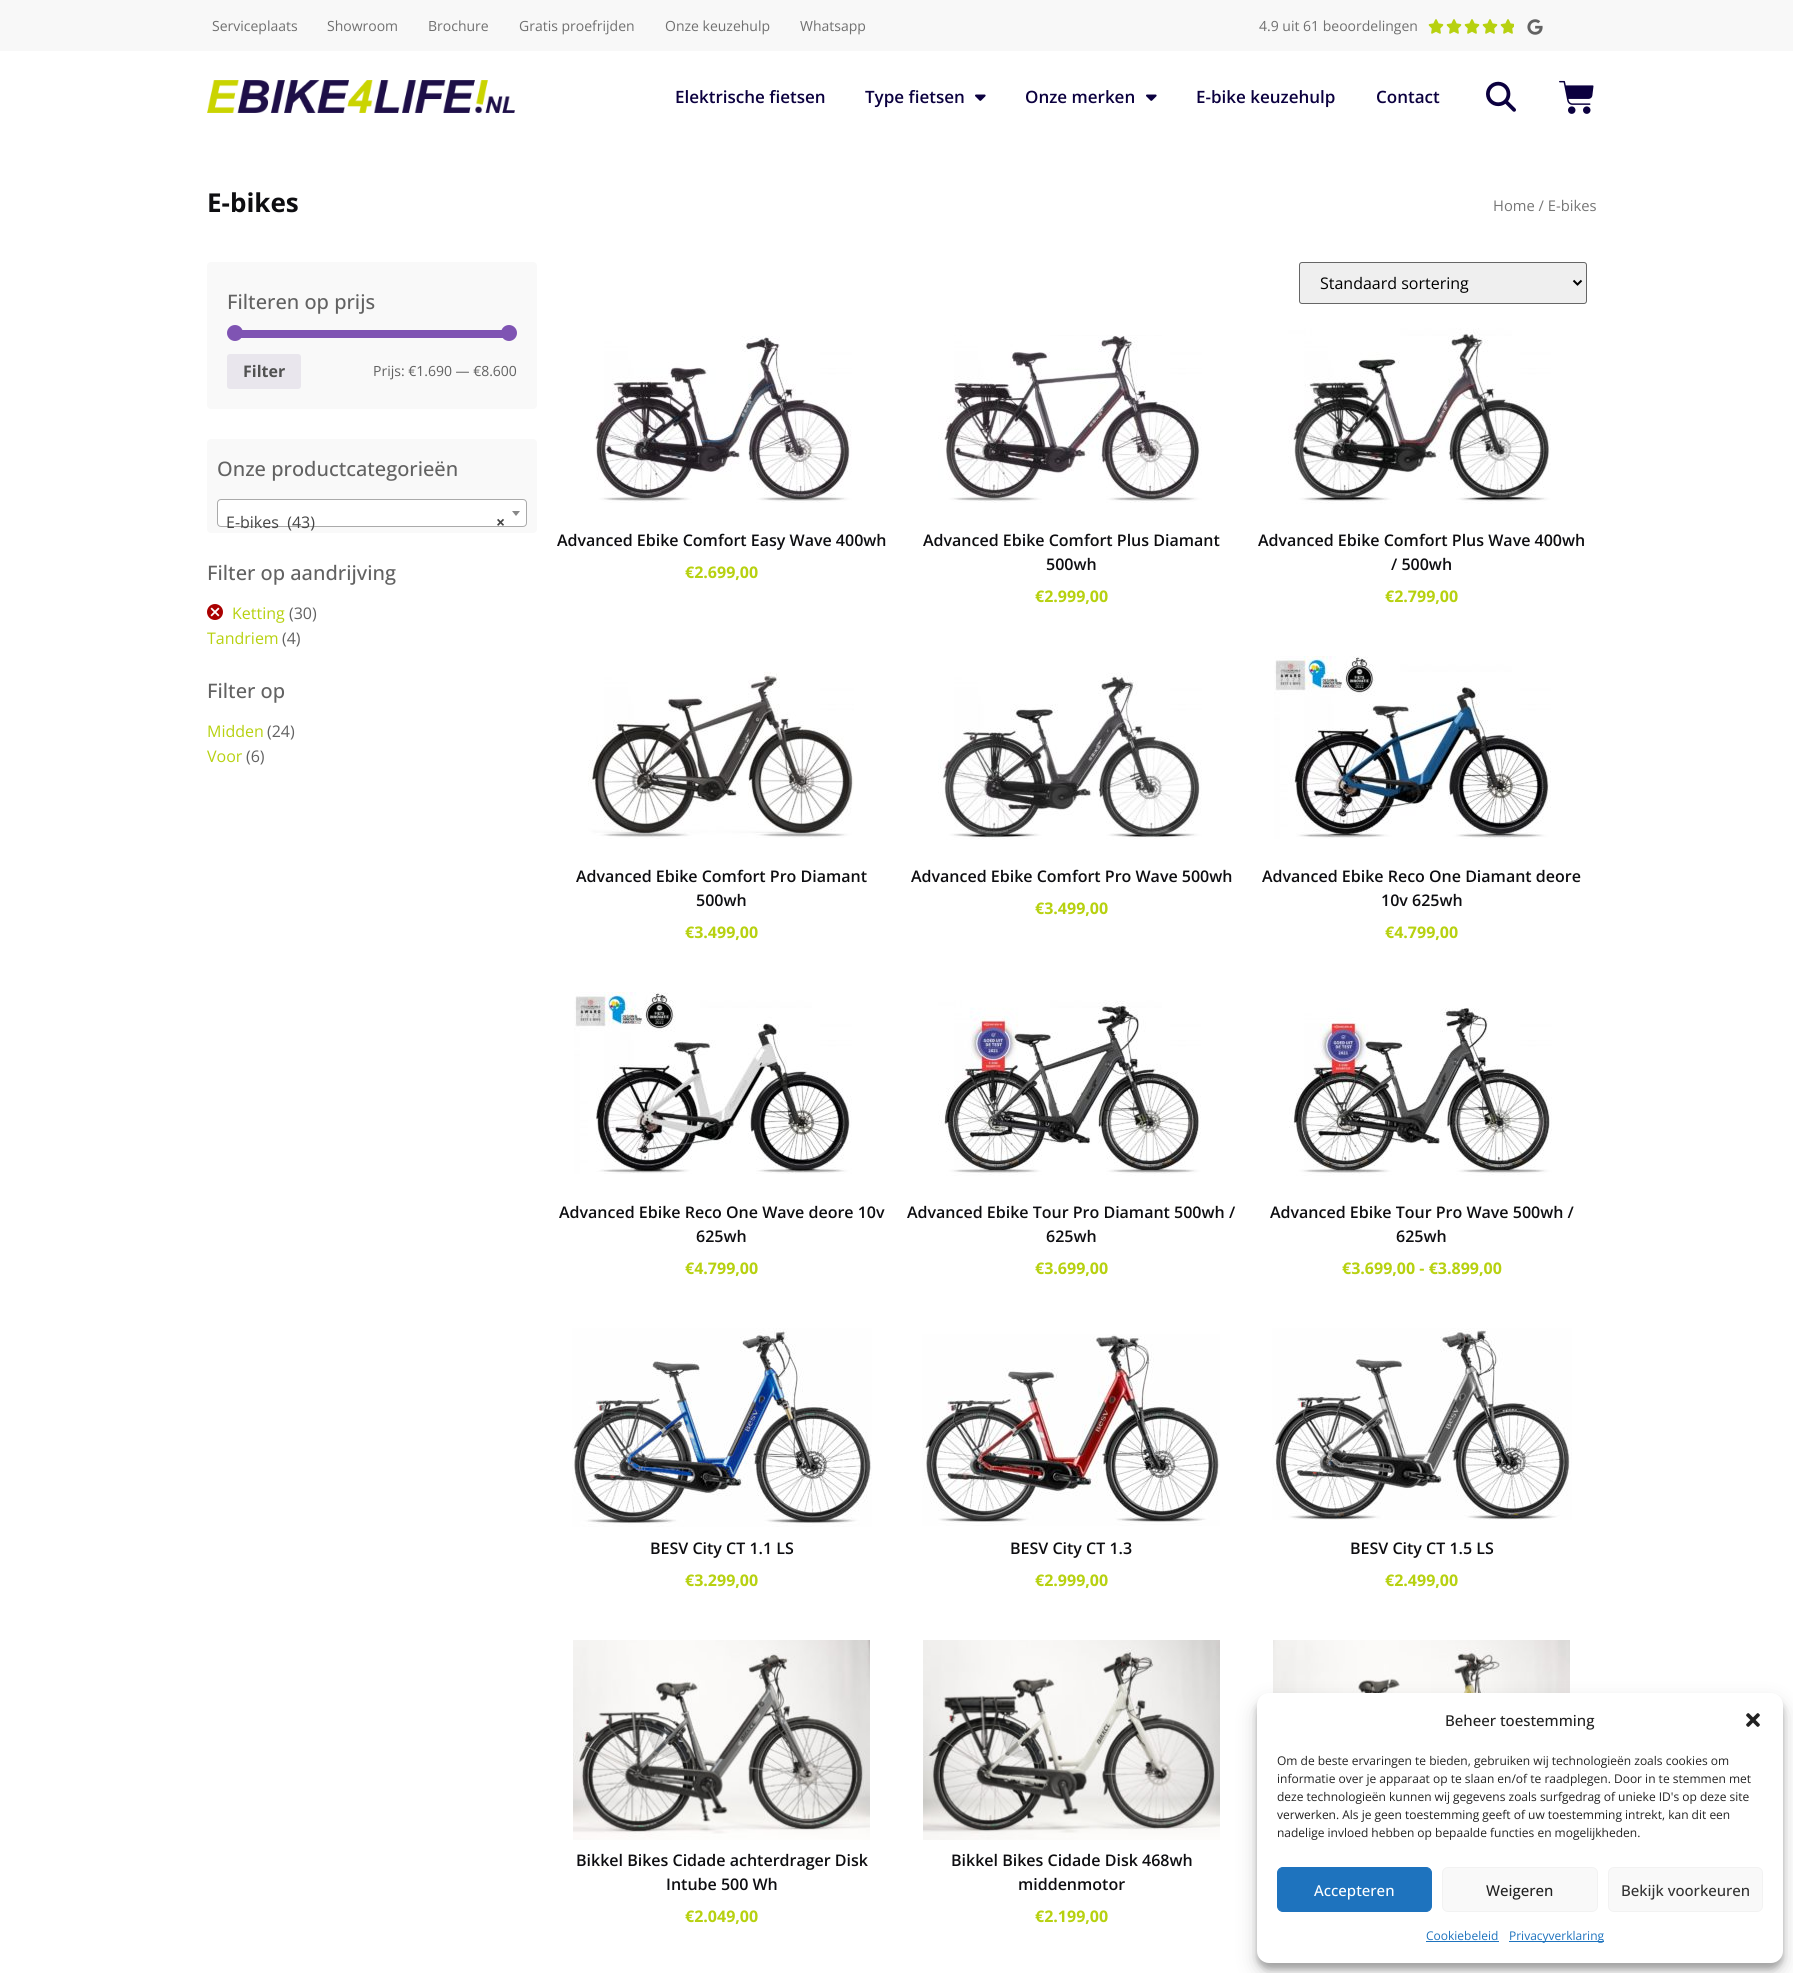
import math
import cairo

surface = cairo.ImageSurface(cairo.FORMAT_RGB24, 1793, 1973)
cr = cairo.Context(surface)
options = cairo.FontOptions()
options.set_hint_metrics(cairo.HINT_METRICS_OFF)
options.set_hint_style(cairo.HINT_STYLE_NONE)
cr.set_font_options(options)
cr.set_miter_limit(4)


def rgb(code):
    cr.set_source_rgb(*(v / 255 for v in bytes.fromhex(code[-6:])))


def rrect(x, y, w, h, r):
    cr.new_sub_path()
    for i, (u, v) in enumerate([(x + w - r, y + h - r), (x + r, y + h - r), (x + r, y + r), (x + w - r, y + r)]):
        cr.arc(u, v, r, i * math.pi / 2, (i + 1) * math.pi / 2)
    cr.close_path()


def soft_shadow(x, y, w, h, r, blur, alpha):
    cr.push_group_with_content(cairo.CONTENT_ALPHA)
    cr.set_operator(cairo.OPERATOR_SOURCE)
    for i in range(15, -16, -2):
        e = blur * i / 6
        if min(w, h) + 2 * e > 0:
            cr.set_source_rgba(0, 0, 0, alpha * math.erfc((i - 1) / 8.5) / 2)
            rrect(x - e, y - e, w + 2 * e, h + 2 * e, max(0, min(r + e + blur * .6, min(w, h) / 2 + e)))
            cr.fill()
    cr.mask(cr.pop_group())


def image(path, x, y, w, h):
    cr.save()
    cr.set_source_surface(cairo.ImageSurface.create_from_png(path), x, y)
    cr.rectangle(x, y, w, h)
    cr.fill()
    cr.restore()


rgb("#ffffff")
cr.paint()
rgb("#f8f8f8")
cr.rectangle(0, 0, 1793, 51)
cr.fill()
image("img/1.png", 1428, 19, 16, 15)
image("img/1.png", 1446, 19, 16, 15)
image("img/1.png", 1464, 19, 16, 15)
image("img/1.png", 1482, 19, 16, 15)
image("img/2.png", 1500, 19, 14, 15)
image("img/3.png", 1527, 19, 16, 16)
image("img/4.png", 207, 80, 308, 33)
image("img/5.png", 975, 94, 11, 7)
image("img/5.png", 1146, 94, 11, 7)
image("img/6.png", 1486, 81, 30, 31)
image("img/7.png", 1559, 80, 35, 34)
rgb("#f9f9f9")
rrect(207, 262, 330, 147, 4)
cr.fill()
rgb("#7f54b3")
cr.rectangle(235, 330, 274, 8)
cr.fill()
cr.arc(235, 333, 8, 0, 2 * math.pi)
cr.fill()
cr.arc(509, 333, 8, 0, 2 * math.pi)
cr.fill()
rgb("#e9e6ed")
rrect(227, 354, 74, 35, 3)
cr.fill()
rgb("#f9f9f9")
rrect(207, 439, 330, 94, 4)
cr.fill()
rgb("#ffffff")
rrect(217.5, 499.5, 309, 27, 3.5)
cr.fill_preserve()
rgb("#aaaaaa")
cr.set_line_width(1)
cr.stroke()
rgb("#888888")
cr.new_path()
cr.move_to(512, 511)
cr.line_to(520, 511)
cr.line_to(516, 516)
cr.close_path()
cr.fill()
image("img/8.png", 207, 604, 16, 16)
rgb("#efefef")
rrect(1299.5, 262.5, 287, 41, 2.5)
cr.fill_preserve()
rgb("#666666")
cr.stroke()
cr.new_path()
cr.move_to(1573.5, 280.5)
cr.line_to(1577.5, 284.5)
cr.line_to(1581.5, 280.5)
rgb("#000000")
cr.set_line_width(2)
cr.stroke()
image("img/9.png", 594, 336, 258, 167)
image("img/10.png", 938, 335, 264, 168)
image("img/11.png", 1288, 328, 263, 176)
image("img/12.png", 588, 672, 266, 167)
image("img/13.png", 938, 672, 264, 168)
image("img/14.png", 1274, 656, 277, 183)
image("img/15.png", 574, 992, 278, 182)
image("img/16.png", 938, 1000, 263, 176)
image("img/17.png", 1289, 1008, 263, 168)
image("img/18.png", 572, 1328, 300, 199)
image("img/19.png", 922, 1334, 298, 192)
image("img/20.png", 1272, 1328, 300, 192)
image("img/21.png", 1273, 1640, 297, 53)
image("img/22.png", 573, 1640, 297, 200)
image("img/23.png", 923, 1640, 297, 200)
rgb("#000000")
soft_shadow(1257, 1699, 526, 270, 12, 3, 0.23)
soft_shadow(1257, 1703, 526, 270, 12, 10, 0.19)
rgb("#ffffff")
rrect(1257, 1693, 526, 270, 12)
cr.fill()
image("img/24.png", 1746, 1713, 14, 14)
rgb("#1e73be")
rrect(1277.5, 1867.5, 154, 44, 5.5)
cr.fill_preserve()
cr.set_line_width(1)
cr.stroke()
rgb("#f9f9f9")
rrect(1442.5, 1867.5, 155, 44, 5.5)
cr.fill_preserve()
rgb("#f2f2f2")
cr.stroke()
rgb("#f9f9f9")
rrect(1608.5, 1867.5, 154, 44, 5.5)
cr.fill_preserve()
rgb("#f2f2f2")
cr.stroke()
rgb("#1e73be")
cr.rectangle(1426, 1941, 73, 1)
cr.fill()
cr.rectangle(1509, 1941, 95, 1)
cr.fill()
cr.select_font_face("Open Sans")
cr.set_font_size(14)
rgb("#707070")
for x, y, s in [
    (212, 31, "Serviceplaats"),
    (327, 31, "Showroom"),
    (428, 31, "Brochure"),
    (519, 31, "Gratis proefrijden"),
    (665, 31, "Onze keuzehulp"),
    (800, 31, "Whatsapp"),
    (1259, 31, "4.9 uit 61 beoordelingen"),
]:
    cr.move_to(x, y)
    cr.show_text(s)
cr.select_font_face("Open Sans SemiBold")
cr.set_font_size(17)
rgb("#0b003f")
for x, y, s in [
    (675, 103, "Elektrische fietsen"),
    (865, 103, "Type fietsen"),
    (1025, 103, "Onze merken"),
    (1196, 103, "E-bike keuzehulp"),
    (1376, 103, "Contact"),
]:
    cr.move_to(x, y)
    cr.show_text(s)
cr.select_font_face("Open Sans", cairo.FONT_SLANT_NORMAL, cairo.FONT_WEIGHT_BOLD)
cr.set_font_size(26)
rgb("#0e0e11")
cr.move_to(207, 212)
cr.show_text("E-bikes")
cr.select_font_face("Open Sans")
cr.set_font_size(14.75)
rgb("#767676")
cr.move_to(1493, 211)
cr.show_text("Home / E-bikes")
cr.select_font_face("Open Sans Medium")
cr.set_font_size(20)
rgb("#626262")
cr.move_to(227, 309)
cr.show_text("Filteren op prijs")
cr.select_font_face("Open Sans", cairo.FONT_SLANT_NORMAL, cairo.FONT_WEIGHT_BOLD)
cr.set_font_size(16)
rgb("#515151")
cr.move_to(243, 377)
cr.show_text("Filter")
cr.select_font_face("Open Sans")
cr.set_font_size(14)
rgb("#626262")
cr.move_to(373, 376)
cr.show_text("Prijs: €1.690 — €8.600")
cr.select_font_face("Open Sans Medium")
cr.set_font_size(20)
cr.move_to(217, 476)
cr.show_text("Onze productcategorieën")
cr.select_font_face("Open Sans")
cr.set_font_size(16)
rgb("#444444")
cr.move_to(226, 528)
cr.show_text("E-bikes  (43)")
cr.select_font_face("Open Sans", cairo.FONT_SLANT_NORMAL, cairo.FONT_WEIGHT_BOLD)
cr.move_to(496, 528)
cr.show_text("×")
cr.select_font_face("Open Sans Medium")
cr.set_font_size(20)
rgb("#626262")
cr.move_to(207, 580)
cr.show_text("Filter op aandrijving")
cr.select_font_face("Open Sans")
cr.set_font_size(16)
rgb("#b7d110")
cr.move_to(232, 619)
cr.show_text("Ketting")
rgb("#626262")
cr.move_to(289, 619)
cr.show_text("(30)")
rgb("#b7d110")
cr.move_to(207, 644)
cr.show_text("Tandriem")
rgb("#626262")
cr.move_to(282, 644)
cr.show_text("(4)")
cr.select_font_face("Open Sans Medium")
cr.set_font_size(20)
cr.move_to(207, 698)
cr.show_text("Filter op")
cr.select_font_face("Open Sans")
cr.set_font_size(16)
rgb("#b7d110")
cr.move_to(207, 737)
cr.show_text("Midden")
rgb("#626262")
cr.move_to(267, 737)
cr.show_text("(24)")
rgb("#b7d110")
cr.move_to(207, 762)
cr.show_text("Voor")
rgb("#626262")
cr.move_to(246, 762)
cr.show_text("(6)")
rgb("#000000")
cr.move_to(1320, 289)
cr.show_text("Standaard sortering")
cr.select_font_face("Open Sans SemiBold")
rgb("#0e0e11")
cr.move_to(557, 546)
cr.show_text("Advanced Ebike Comfort Easy Wave 400wh")
cr.select_font_face("Open Sans", cairo.FONT_SLANT_NORMAL, cairo.FONT_WEIGHT_BOLD)
rgb("#b7d110")
cr.move_to(685, 578)
cr.show_text("€2.699,00")
cr.select_font_face("Open Sans SemiBold")
rgb("#0e0e11")
cr.move_to(923, 546)
cr.show_text("Advanced Ebike Comfort Plus Diamant")
cr.move_to(1046, 570)
cr.show_text("500wh")
cr.select_font_face("Open Sans", cairo.FONT_SLANT_NORMAL, cairo.FONT_WEIGHT_BOLD)
rgb("#b7d110")
cr.move_to(1035, 602)
cr.show_text("€2.999,00")
cr.select_font_face("Open Sans SemiBold")
rgb("#0e0e11")
cr.move_to(1258, 546)
cr.show_text("Advanced Ebike Comfort Plus Wave 400wh")
cr.move_to(1391, 570)
cr.show_text("/ 500wh")
cr.select_font_face("Open Sans", cairo.FONT_SLANT_NORMAL, cairo.FONT_WEIGHT_BOLD)
rgb("#b7d110")
cr.move_to(1385, 602)
cr.show_text("€2.799,00")
cr.select_font_face("Open Sans SemiBold")
rgb("#0e0e11")
cr.move_to(576, 882)
cr.show_text("Advanced Ebike Comfort Pro Diamant")
cr.move_to(696, 906)
cr.show_text("500wh")
cr.select_font_face("Open Sans", cairo.FONT_SLANT_NORMAL, cairo.FONT_WEIGHT_BOLD)
rgb("#b7d110")
cr.move_to(685, 938)
cr.show_text("€3.499,00")
cr.select_font_face("Open Sans SemiBold")
rgb("#0e0e11")
cr.move_to(911, 882)
cr.show_text("Advanced Ebike Comfort Pro Wave 500wh")
cr.select_font_face("Open Sans", cairo.FONT_SLANT_NORMAL, cairo.FONT_WEIGHT_BOLD)
rgb("#b7d110")
cr.move_to(1035, 914)
cr.show_text("€3.499,00")
cr.select_font_face("Open Sans SemiBold")
rgb("#0e0e11")
cr.move_to(1262, 882)
cr.show_text("Advanced Ebike Reco One Diamant deore")
cr.move_to(1381, 906)
cr.show_text("10v 625wh")
cr.select_font_face("Open Sans", cairo.FONT_SLANT_NORMAL, cairo.FONT_WEIGHT_BOLD)
rgb("#b7d110")
cr.move_to(1385, 938)
cr.show_text("€4.799,00")
cr.select_font_face("Open Sans SemiBold")
rgb("#0e0e11")
cr.move_to(559, 1218)
cr.show_text("Advanced Ebike Reco One Wave deore 10v")
cr.move_to(696, 1242)
cr.show_text("625wh")
cr.select_font_face("Open Sans", cairo.FONT_SLANT_NORMAL, cairo.FONT_WEIGHT_BOLD)
rgb("#b7d110")
cr.move_to(685, 1274)
cr.show_text("€4.799,00")
cr.select_font_face("Open Sans SemiBold")
rgb("#0e0e11")
cr.move_to(907, 1218)
cr.show_text("Advanced Ebike Tour Pro Diamant 500wh /")
cr.move_to(1046, 1242)
cr.show_text("625wh")
cr.select_font_face("Open Sans", cairo.FONT_SLANT_NORMAL, cairo.FONT_WEIGHT_BOLD)
rgb("#b7d110")
cr.move_to(1035, 1274)
cr.show_text("€3.699,00")
cr.select_font_face("Open Sans SemiBold")
rgb("#0e0e11")
cr.move_to(1270, 1218)
cr.show_text("Advanced Ebike Tour Pro Wave 500wh /")
cr.move_to(1396, 1242)
cr.show_text("625wh")
cr.select_font_face("Open Sans", cairo.FONT_SLANT_NORMAL, cairo.FONT_WEIGHT_BOLD)
rgb("#b7d110")
cr.move_to(1342, 1274)
cr.show_text("€3.699,00 - €3.899,00")
cr.select_font_face("Open Sans SemiBold")
rgb("#0e0e11")
cr.move_to(650, 1554)
cr.show_text("BESV City CT 1.1 LS")
cr.select_font_face("Open Sans", cairo.FONT_SLANT_NORMAL, cairo.FONT_WEIGHT_BOLD)
rgb("#b7d110")
cr.move_to(685, 1586)
cr.show_text("€3.299,00")
cr.select_font_face("Open Sans SemiBold")
rgb("#0e0e11")
cr.move_to(1010, 1554)
cr.show_text("BESV City CT 1.3")
cr.select_font_face("Open Sans", cairo.FONT_SLANT_NORMAL, cairo.FONT_WEIGHT_BOLD)
rgb("#b7d110")
cr.move_to(1035, 1586)
cr.show_text("€2.999,00")
cr.select_font_face("Open Sans SemiBold")
rgb("#0e0e11")
cr.move_to(1350, 1554)
cr.show_text("BESV City CT 1.5 LS")
cr.select_font_face("Open Sans", cairo.FONT_SLANT_NORMAL, cairo.FONT_WEIGHT_BOLD)
rgb("#b7d110")
cr.move_to(1385, 1586)
cr.show_text("€2.499,00")
cr.select_font_face("Open Sans SemiBold")
rgb("#0e0e11")
cr.move_to(576, 1866)
cr.show_text("Bikkel Bikes Cidade achterdrager Disk")
cr.move_to(666, 1890)
cr.show_text("Intube 500 Wh")
cr.select_font_face("Open Sans", cairo.FONT_SLANT_NORMAL, cairo.FONT_WEIGHT_BOLD)
rgb("#b7d110")
cr.move_to(685, 1922)
cr.show_text("€2.049,00")
cr.select_font_face("Open Sans SemiBold")
rgb("#0e0e11")
cr.move_to(951, 1866)
cr.show_text("Bikkel Bikes Cidade Disk 468wh")
cr.move_to(1018, 1890)
cr.show_text("middenmotor")
cr.select_font_face("Open Sans", cairo.FONT_SLANT_NORMAL, cairo.FONT_WEIGHT_BOLD)
rgb("#b7d110")
cr.move_to(1035, 1922)
cr.show_text("€2.199,00")
cr.select_font_face("Open Sans Medium")
cr.set_font_size(15)
rgb("#222222")
cr.move_to(1445, 1726)
cr.show_text("Beheer toestemming")
cr.select_font_face("Open Sans")
cr.set_font_size(12)
for x, y, s in [
    (1277, 1765, "Om de beste ervaringen te bieden, gebruiken wij technologieën zoals cookies om"),
    (1277, 1783, "informatie over je apparaat op te slaan en/of te raadplegen. Door in te stemmen met"),
    (1277, 1801, "deze technologieën kunnen wij gegevens zoals surfgedrag of unieke ID's op deze site"),
    (1277, 1819, "verwerken. Als je geen toestemming geeft of uw toestemming intrekt, kan dit een"),
    (1277, 1837, "nadelige invloed hebben op bepaalde functies en mogelijkheden."),
]:
    cr.move_to(x, y)
    cr.show_text(s)
cr.select_font_face("Open Sans Medium")
cr.set_font_size(15)
rgb("#ffffff")
cr.move_to(1314, 1896)
cr.show_text("Accepteren")
rgb("#222222")
cr.move_to(1486, 1896)
cr.show_text("Weigeren")
rgb("#333333")
cr.move_to(1621, 1896)
cr.show_text("Bekijk voorkeuren")
cr.select_font_face("Open Sans")
cr.set_font_size(12)
rgb("#1e73be")
cr.move_to(1426, 1940)
cr.show_text("Cookiebeleid")
cr.move_to(1509, 1940)
cr.show_text("Privacyverklaring")
surface.write_to_png("page.png")
